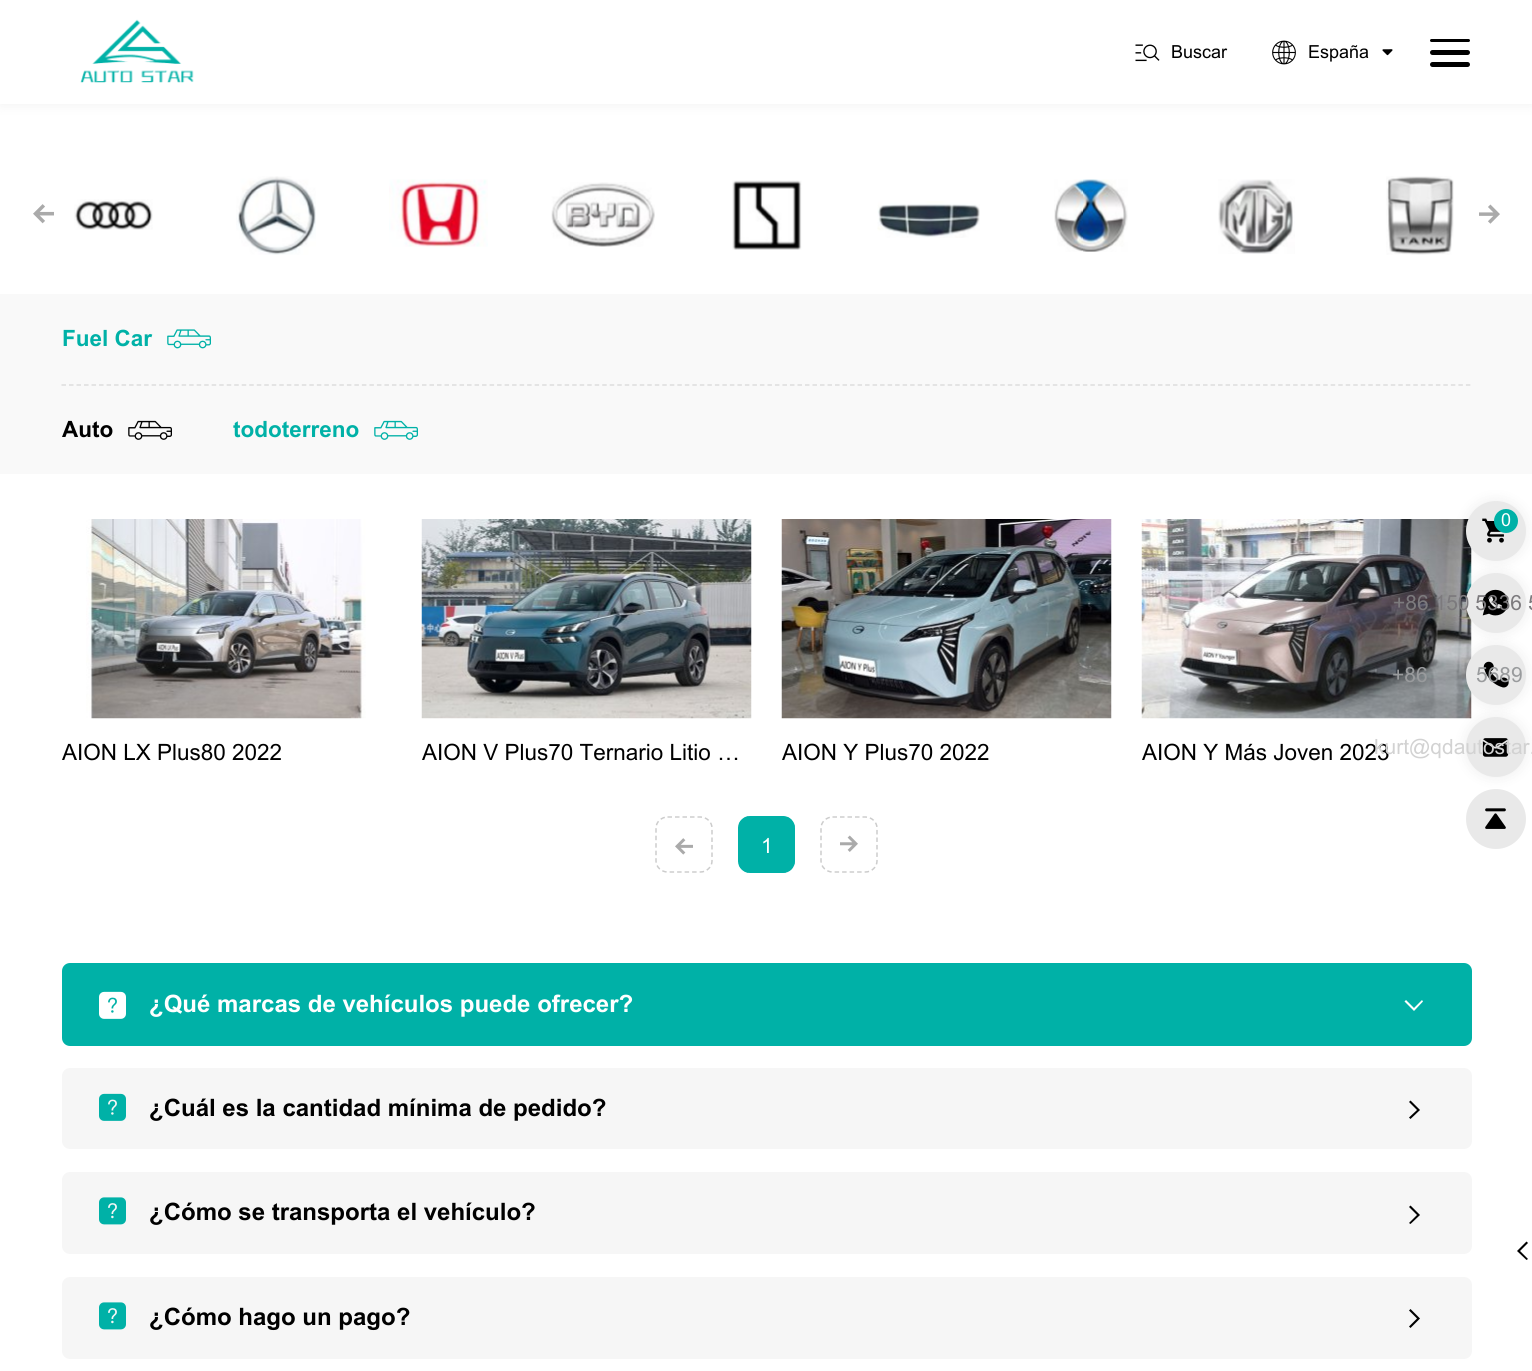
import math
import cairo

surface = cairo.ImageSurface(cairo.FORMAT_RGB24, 1532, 1371)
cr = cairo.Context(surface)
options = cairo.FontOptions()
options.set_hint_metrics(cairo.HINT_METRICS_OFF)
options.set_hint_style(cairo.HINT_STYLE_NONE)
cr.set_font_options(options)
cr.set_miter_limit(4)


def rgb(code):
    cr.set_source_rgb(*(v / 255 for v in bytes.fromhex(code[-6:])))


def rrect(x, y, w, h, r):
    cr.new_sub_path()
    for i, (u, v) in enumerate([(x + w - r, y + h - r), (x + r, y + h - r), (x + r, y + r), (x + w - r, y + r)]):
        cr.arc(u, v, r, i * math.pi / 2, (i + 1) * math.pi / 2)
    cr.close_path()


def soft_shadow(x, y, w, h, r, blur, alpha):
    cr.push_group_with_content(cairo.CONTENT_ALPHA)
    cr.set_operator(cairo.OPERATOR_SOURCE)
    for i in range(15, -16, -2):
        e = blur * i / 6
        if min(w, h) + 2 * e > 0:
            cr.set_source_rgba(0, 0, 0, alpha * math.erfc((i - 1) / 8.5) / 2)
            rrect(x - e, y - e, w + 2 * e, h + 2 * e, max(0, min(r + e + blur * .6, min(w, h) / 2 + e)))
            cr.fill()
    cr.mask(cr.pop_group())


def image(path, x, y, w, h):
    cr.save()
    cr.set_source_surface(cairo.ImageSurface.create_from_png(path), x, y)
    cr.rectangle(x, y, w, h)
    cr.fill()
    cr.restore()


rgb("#ffffff")
cr.paint()
rgb("#000000")
soft_shadow(0, 0, 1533, 104, 0, 7.5, 0.06)
rgb("#ffffff")
cr.rectangle(0, 0, 1532, 104)
cr.fill()
image("img/1.png", 80, 19, 114, 64)
image("img/2.png", 1135, 44, 25, 18)
image("img/3.png", 1272, 40, 24, 25)
image("img/4.png", 1382, 49, 11, 7)
rgb("#000000")
rrect(1430, 39, 40, 3, 1.5)
cr.fill()
rrect(1430, 50, 40, 5, 2.5)
cr.fill()
rrect(1430, 62, 40, 5, 2.5)
cr.fill()
image("img/5.png", 74, 199, 79, 31)
image("img/6.png", 236, 176, 80, 79)
image("img/7.png", 389, 179, 99, 68)
image("img/8.png", 551, 182, 104, 65)
image("img/9.png", 732, 180, 70, 70)
image("img/10.png", 877, 201, 103, 37)
image("img/11.png", 1054, 179, 74, 73)
image("img/12.png", 1218, 179, 77, 75)
image("img/13.png", 1386, 176, 68, 79)
image("img/14.png", 33, 204, 21, 20)
image("img/15.png", 1479, 204, 21, 20)
rgb("#f9f9f9")
cr.rectangle(0, 294, 1532, 180)
cr.fill()
image("img/16.png", 167, 329, 44, 20)
cr.new_path()
cr.move_to(61.5, 385)
cr.line_to(1471.5, 385)
rgb("#dddddd")
cr.set_line_width(1.5)
cr.set_dash([4.5, 3.01])
cr.stroke()
image("img/17.png", 128, 420, 44, 20)
image("img/18.png", 374, 420, 44, 20)
image("img/19.png", 86, 519, 280, 200)
image("img/20.png", 421, 519, 331, 200)
image("img/21.png", 781, 519, 331, 200)
image("img/22.png", 1141, 519, 331, 200)
cr.new_path()
cr.move_to(667.5, 817)
cr.line_to(700.5, 817)
cr.curve_to(706.5, 817, 712, 822, 712, 828)
cr.line_to(712, 861)
cr.curve_to(712, 867, 706.5, 872, 700.5, 872)
cr.line_to(667.5, 872)
cr.curve_to(661.5, 872, 656, 867, 656, 861)
cr.line_to(656, 828)
cr.curve_to(656, 822, 661.5, 817, 667.5, 817)
cr.close_path()
rgb("#cccccc")
cr.set_dash([4.5, 3])
cr.stroke()
image("img/23.png", 675, 838, 18, 17)
rgb("#00b1a7")
rrect(738, 816, 57, 57, 12)
cr.fill()
cr.new_path()
cr.move_to(750, 817)
cr.line_to(783, 817)
cr.curve_to(789, 817, 794, 822, 794, 828)
cr.line_to(794, 861)
cr.curve_to(794, 867, 789, 872, 783, 872)
cr.line_to(750, 872)
cr.curve_to(744, 872, 739, 867, 739, 861)
cr.line_to(739, 828)
cr.curve_to(739, 822, 744, 817, 750, 817)
cr.close_path()
cr.stroke()
cr.new_path()
cr.move_to(832.5, 817)
cr.line_to(865.5, 817)
cr.curve_to(871.5, 817, 877, 822, 877, 828)
cr.line_to(877, 861)
cr.curve_to(877, 867, 871.5, 872, 865.5, 872)
cr.line_to(832.5, 872)
cr.curve_to(826.5, 872, 821, 867, 821, 861)
cr.line_to(821, 828)
cr.curve_to(821, 822, 826.5, 817, 832.5, 817)
cr.close_path()
rgb("#cccccc")
cr.stroke()
image("img/24.png", 840, 835, 18, 17)
rgb("#00b1a7")
rrect(62, 963, 1410, 83, 8)
cr.fill()
image("img/25.png", 99, 991, 27, 28)
rgb("#ffffff")
cr.new_path()
cr.move_to(1422, 1000)
cr.line_to(1423, 1001.5)
cr.line_to(1414, 1011)
cr.line_to(1404.5, 1001.5)
cr.line_to(1406, 1000)
cr.line_to(1414, 1008)
cr.close_path()
cr.fill()
rgb("#f6f6f6")
rrect(62, 1068, 1410, 81, 8)
cr.fill()
image("img/26.png", 99, 1093, 27, 28)
rgb("#000000")
cr.new_path()
cr.move_to(1409, 1102)
cr.line_to(1410.5, 1100.5)
cr.line_to(1420, 1110)
cr.line_to(1410.5, 1119)
cr.line_to(1409, 1117.5)
cr.line_to(1417, 1110)
cr.close_path()
cr.fill()
rgb("#f6f6f6")
rrect(62, 1172, 1410, 82, 8)
cr.fill()
image("img/27.png", 99, 1197, 27, 28)
rgb("#000000")
cr.new_path()
cr.move_to(1409, 1207)
cr.line_to(1410.5, 1205.5)
cr.line_to(1420, 1215)
cr.line_to(1410.5, 1224)
cr.line_to(1409, 1223)
cr.line_to(1417, 1215)
cr.close_path()
cr.fill()
rgb("#f6f6f6")
rrect(62, 1277, 1410, 82, 8)
cr.fill()
image("img/27.png", 99, 1302, 27, 28)
rgb("#000000")
cr.new_path()
cr.move_to(1409, 1310.5)
cr.line_to(1410.5, 1309)
cr.line_to(1420, 1318.5)
cr.line_to(1410.5, 1328)
cr.line_to(1409, 1326.5)
cr.line_to(1417, 1318.5)
cr.close_path()
cr.fill()
rgb("#000000")
soft_shadow(1466, 501, 60, 60, 30, 7.5, 0.07)
rgb("#e9e9e9")
cr.arc(1496, 531, 30, 0, 2 * math.pi)
cr.fill()
image("img/28.png", 1482, 518, 22, 25)
rgb("#00b1a7")
cr.arc(1506, 521, 12, 0, 2 * math.pi)
cr.fill()
rgb("#000000")
soft_shadow(1466, 573, 60, 60, 30, 7.5, 0.07)
rgb("#e9e9e9")
cr.arc(1496, 603, 30, 0, 2 * math.pi)
cr.fill()
image("img/29.png", 1482, 589, 27, 27)
rgb("#000000")
soft_shadow(1466, 645, 60, 60, 30, 7.5, 0.07)
rgb("#e9e9e9")
cr.arc(1496, 675, 30, 0, 2 * math.pi)
cr.fill()
image("img/30.png", 1483, 661, 26, 27)
rgb("#000000")
soft_shadow(1466, 717, 60, 60, 30, 7.5, 0.07)
rgb("#e9e9e9")
cr.arc(1496, 747, 30, 0, 2 * math.pi)
cr.fill()
image("img/31.png", 1482, 738, 27, 19)
cr.arc(1496, 819, 30, 0, 2 * math.pi)
cr.fill()
image("img/32.png", 1485, 808, 21, 21)
rgb("#000000")
cr.new_path()
cr.move_to(1528, 1259)
cr.line_to(1526.5, 1260)
cr.line_to(1517, 1251)
cr.line_to(1526.5, 1241.5)
cr.line_to(1528, 1243)
cr.line_to(1520, 1251)
cr.close_path()
cr.fill()
cr.select_font_face("Arial")
cr.set_font_size(18)
cr.move_to(1171, 58)
cr.show_text("Buscar")
cr.move_to(1308, 58)
cr.show_text("España")
cr.select_font_face("Arial", cairo.FONT_SLANT_NORMAL, cairo.FONT_WEIGHT_BOLD)
cr.set_font_size(22.5)
rgb("#00b1a7")
cr.move_to(62, 346)
cr.show_text("Fuel Car")
rgb("#000000")
cr.move_to(62, 437)
cr.show_text("Auto")
rgb("#00b1a7")
cr.move_to(233, 437)
cr.show_text("todoterreno")
cr.select_font_face("Arial")
rgb("#000000")
for x, y, s in [
    (62, 760, "AION LX Plus80 2022"),
    (422, 760, "AION V Plus70 Ternario Litio …"),
    (782, 760, "AION Y Plus70 2022"),
    (1142, 760, "AION Y Más Joven 2023"),
]:
    cr.move_to(x, y)
    cr.show_text(s)
cr.set_font_size(21)
rgb("#ffffff")
cr.move_to(761, 853)
cr.show_text("1")
cr.select_font_face("Arial", cairo.FONT_SLANT_NORMAL, cairo.FONT_WEIGHT_BOLD)
cr.set_font_size(24)
cr.move_to(149, 1012)
cr.show_text("¿Qué marcas de vehículos puede ofrecer?")
rgb("#000000")
for x, y, s in [
    (149, 1116, "¿Cuál es la cantidad mínima de pedido?"),
    (149, 1220, "¿Cómo se transporta el vehículo?"),
    (149, 1325, "¿Cómo hago un pago?"),
]:
    cr.move_to(x, y)
    cr.show_text(s)
cr.select_font_face("Arial")
cr.set_font_size(18)
rgb("#ffffff")
cr.move_to(1501, 526)
cr.show_text("0")
cr.set_font_size(21)
rgb("#7c7a7d")
cr.move_to(1393, 610)
cr.show_text("+86 150 5336 5")
rgb("#999b9d")
cr.move_to(1392, 682)
cr.show_text("+86")
cr.move_to(1476, 682)
cr.show_text("5689")
rgb("#d2d2d2")
cr.move_to(1374, 754)
cr.show_text("kurt@qdautostar.")
surface.write_to_png("page.png")
